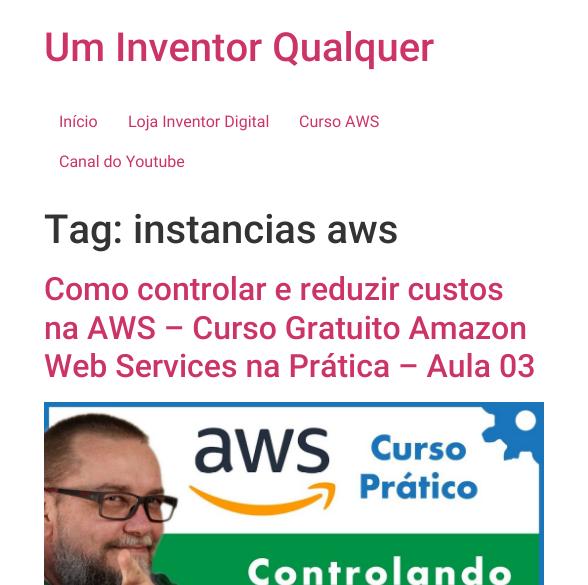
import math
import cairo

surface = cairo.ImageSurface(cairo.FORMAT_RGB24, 588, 585)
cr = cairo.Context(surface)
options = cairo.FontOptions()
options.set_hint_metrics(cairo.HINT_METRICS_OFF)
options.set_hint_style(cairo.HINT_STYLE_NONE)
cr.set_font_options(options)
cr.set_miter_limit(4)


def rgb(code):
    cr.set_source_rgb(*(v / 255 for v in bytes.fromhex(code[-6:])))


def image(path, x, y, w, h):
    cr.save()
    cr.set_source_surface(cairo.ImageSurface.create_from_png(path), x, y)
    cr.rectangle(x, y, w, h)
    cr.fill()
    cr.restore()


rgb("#ffffff")
cr.paint()
image("img/1.png", 44, 402, 500, 183)
cr.select_font_face("Roboto Medium")
cr.set_font_size(40)
rgb("#cc3366")
cr.move_to(44, 61)
cr.show_text("Um Inventor Qualquer")
cr.select_font_face("Roboto")
cr.set_font_size(16)
for x, y, s in [
    (59, 127, "Início"),
    (128, 127, "Loja Inventor Digital"),
    (299, 127, "Curso AWS"),
    (59, 167, "Canal do Youtube"),
]:
    cr.move_to(x, y)
    cr.show_text(s)
cr.select_font_face("Roboto Medium")
cr.set_font_size(40)
rgb("#333333")
cr.move_to(44, 243)
cr.show_text("Tag: instancias aws")
cr.set_font_size(32)
rgb("#cc3366")
for x, y, s in [
    (44, 300, "Como controlar e reduzir custos"),
    (44, 339, "na AWS – Curso Gratuito Amazon"),
    (44, 377, "Web Services na Prática – Aula 03"),
]:
    cr.move_to(x, y)
    cr.show_text(s)
surface.write_to_png("page.png")
